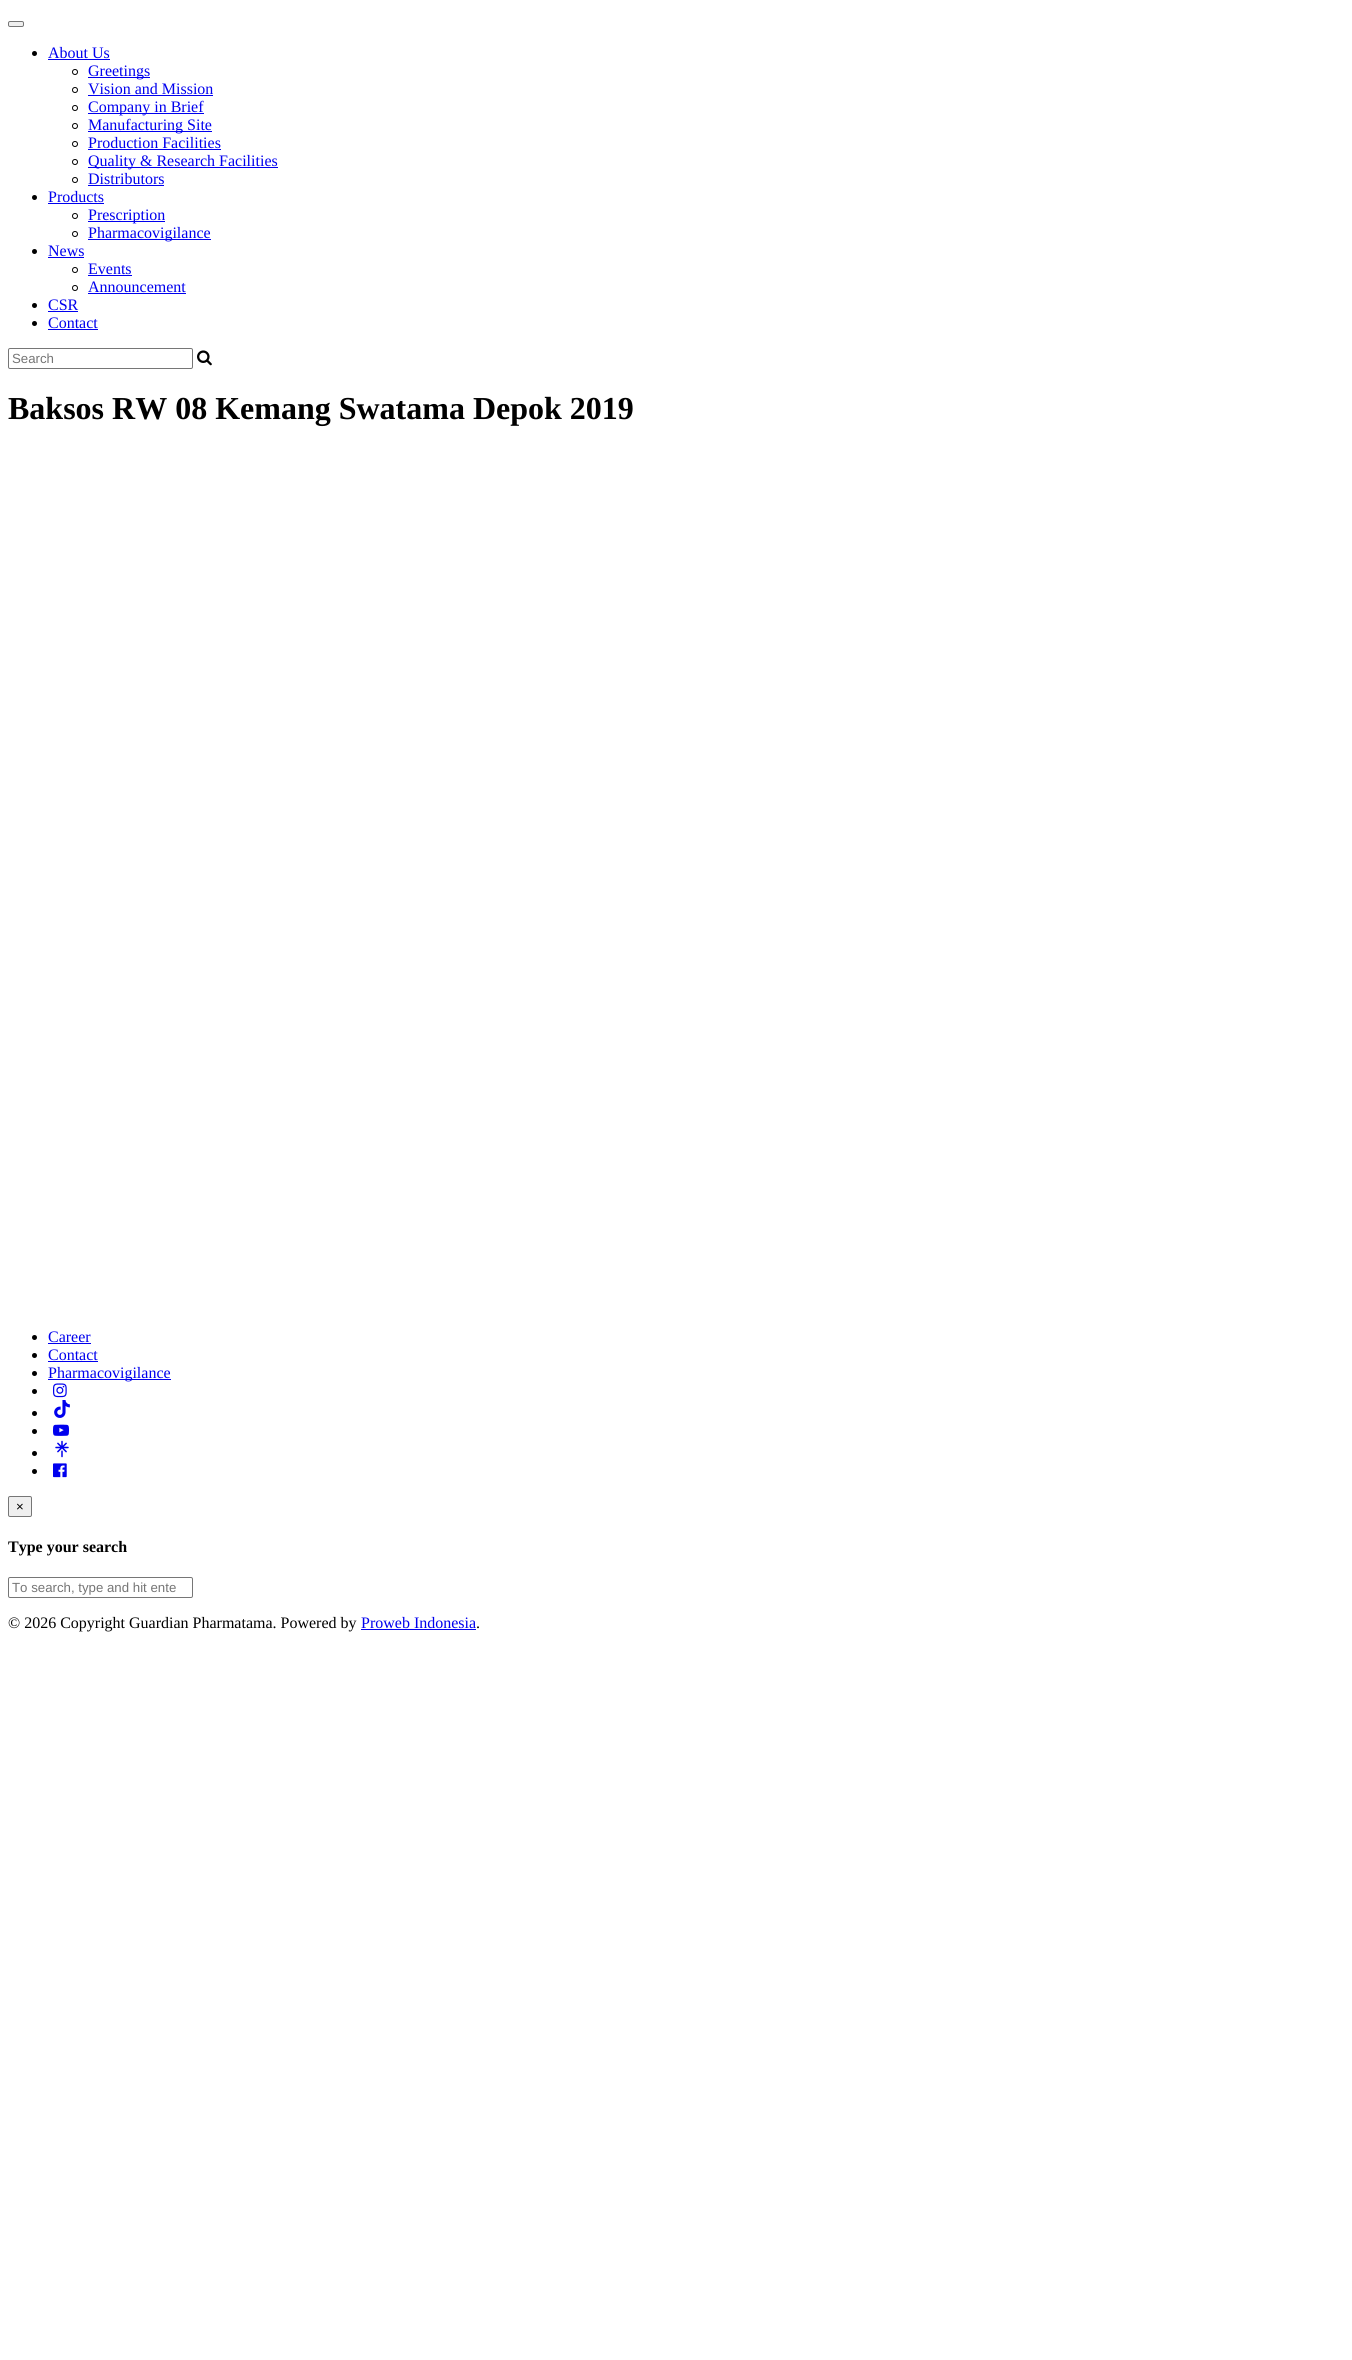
import math
import cairo

surface = cairo.ImageSurface(cairo.FORMAT_RGB24, 1352, 2360)
cr = cairo.Context(surface)
options = cairo.FontOptions()
options.set_hint_metrics(cairo.HINT_METRICS_OFF)
options.set_hint_style(cairo.HINT_STYLE_NONE)
cr.set_font_options(options)
cr.set_miter_limit(4)


def rgb(code):
    cr.set_source_rgb(*(v / 255 for v in bytes.fromhex(code[-6:])))


def rrect(x, y, w, h, r):
    cr.new_sub_path()
    for i, (u, v) in enumerate([(x + w - r, y + h - r), (x + r, y + h - r), (x + r, y + r), (x + w - r, y + r)]):
        cr.arc(u, v, r, i * math.pi / 2, (i + 1) * math.pi / 2)
    cr.close_path()


def image(path, x, y, w, h):
    cr.save()
    cr.set_source_surface(cairo.ImageSurface.create_from_png(path), x, y)
    cr.rectangle(x, y, w, h)
    cr.fill()
    cr.restore()


rgb("#ffffff")
cr.paint()
rgb("#efefef")
rrect(8.5, 21.5, 15, 5, 1.5)
cr.fill_preserve()
rgb("#767676")
cr.set_line_width(1)
cr.stroke()
rgb("#000000")
cr.arc(34.5, 53.5, 2.5, 0, 2 * math.pi)
cr.fill()
rgb("#0000ee")
cr.rectangle(48, 59, 62, 1)
cr.fill()
cr.arc(75, 72, 2.5, 0, 2 * math.pi)
rgb("#000000")
cr.stroke()
rgb("#0000ee")
cr.rectangle(88, 77, 62, 1)
cr.fill()
cr.arc(75, 90, 2.5, 0, 2 * math.pi)
rgb("#000000")
cr.stroke()
rgb("#0000ee")
cr.rectangle(88, 95, 125, 1)
cr.fill()
cr.arc(75, 108, 2.5, 0, 2 * math.pi)
rgb("#000000")
cr.stroke()
rgb("#0000ee")
cr.rectangle(88, 113, 116, 1)
cr.fill()
cr.arc(75, 126, 2.5, 0, 2 * math.pi)
rgb("#000000")
cr.stroke()
rgb("#0000ee")
cr.rectangle(88, 131, 124, 1)
cr.fill()
cr.arc(75, 144, 2.5, 0, 2 * math.pi)
rgb("#000000")
cr.stroke()
rgb("#0000ee")
cr.rectangle(88, 149, 133, 1)
cr.fill()
cr.arc(75, 162, 2.5, 0, 2 * math.pi)
rgb("#000000")
cr.stroke()
rgb("#0000ee")
cr.rectangle(88, 167, 190, 1)
cr.fill()
cr.arc(75, 180, 2.5, 0, 2 * math.pi)
rgb("#000000")
cr.stroke()
rgb("#0000ee")
cr.rectangle(88, 185, 76, 1)
cr.fill()
rgb("#000000")
cr.arc(34.5, 197.5, 2.5, 0, 2 * math.pi)
cr.fill()
rgb("#0000ee")
cr.rectangle(48, 203, 56, 1)
cr.fill()
cr.arc(75, 216, 2.5, 0, 2 * math.pi)
rgb("#000000")
cr.stroke()
rgb("#0000ee")
cr.rectangle(88, 221, 77, 1)
cr.fill()
cr.arc(75, 234, 2.5, 0, 2 * math.pi)
rgb("#000000")
cr.stroke()
rgb("#0000ee")
cr.rectangle(88, 239, 123, 1)
cr.fill()
rgb("#000000")
cr.arc(34.5, 251.5, 2.5, 0, 2 * math.pi)
cr.fill()
rgb("#0000ee")
cr.rectangle(48, 257, 36, 1)
cr.fill()
cr.arc(75, 270, 2.5, 0, 2 * math.pi)
rgb("#000000")
cr.stroke()
rgb("#0000ee")
cr.rectangle(88, 275, 44, 1)
cr.fill()
cr.arc(75, 288, 2.5, 0, 2 * math.pi)
rgb("#000000")
cr.stroke()
rgb("#0000ee")
cr.rectangle(88, 293, 98, 1)
cr.fill()
rgb("#000000")
cr.arc(34.5, 305.5, 2.5, 0, 2 * math.pi)
cr.fill()
rgb("#0000ee")
cr.rectangle(48, 311, 30, 1)
cr.fill()
rgb("#000000")
cr.arc(34.5, 323.5, 2.5, 0, 2 * math.pi)
cr.fill()
rgb("#0000ee")
cr.rectangle(48, 329, 50, 1)
cr.fill()
rrect(8.5, 348.5, 184, 20, 1.5)
rgb("#767676")
cr.stroke()
image("img/1.png", 197, 350, 15, 16)
rgb("#000000")
cr.arc(34.5, 1337.5, 2.5, 0, 2 * math.pi)
cr.fill()
rgb("#0000ee")
cr.rectangle(48, 1343, 43, 1)
cr.fill()
rgb("#000000")
cr.arc(34.5, 1355.5, 2.5, 0, 2 * math.pi)
cr.fill()
rgb("#0000ee")
cr.rectangle(48, 1361, 50, 1)
cr.fill()
rgb("#000000")
cr.arc(34.5, 1373.5, 2.5, 0, 2 * math.pi)
cr.fill()
rgb("#0000ee")
cr.rectangle(48, 1379, 123, 1)
cr.fill()
rgb("#000000")
cr.arc(34.5, 1391.5, 2.5, 0, 2 * math.pi)
cr.fill()
image("img/2.png", 53, 1383, 14, 15)
cr.arc(34.5, 1413.5, 2.5, 0, 2 * math.pi)
cr.fill()
image("img/3.png", 54, 1400, 16, 18)
cr.arc(34.5, 1431.5, 2.5, 0, 2 * math.pi)
cr.fill()
image("img/4.png", 53, 1424, 16, 12)
cr.arc(34.5, 1453.5, 2.5, 0, 2 * math.pi)
cr.fill()
image("img/5.png", 55, 1440, 14, 18)
cr.arc(34.5, 1471.5, 2.5, 0, 2 * math.pi)
cr.fill()
image("img/6.png", 53, 1463, 14, 15)
rgb("#efefef")
rrect(8.5, 1496.5, 23, 20, 1.5)
cr.fill_preserve()
rgb("#767676")
cr.stroke()
rrect(8.5, 1577.5, 184, 20, 1.5)
cr.stroke()
rgb("#0000ee")
cr.rectangle(361, 1629, 115, 1)
cr.fill()
cr.select_font_face("Liberation Serif")
cr.set_font_size(16)
for x, y, s in [
    (48, 58, "About Us"),
    (88, 76, "Greetings"),
    (88, 94, "Vision and Mission"),
    (88, 112, "Company in Brief"),
    (88, 130, "Manufacturing Site"),
    (88, 148, "Production Facilities"),
    (88, 166, "Quality & Research Facilities"),
    (88, 184, "Distributors"),
    (48, 202, "Products"),
    (88, 220, "Prescription"),
    (88, 238, "Pharmacovigilance"),
    (48, 256, "News"),
    (88, 274, "Events"),
    (88, 292, "Announcement"),
    (48, 310, "CSR"),
    (48, 328, "Contact"),
]:
    cr.move_to(x, y)
    cr.show_text(s)
cr.select_font_face("Liberation Sans")
cr.set_font_size(13.25)
rgb("#757575")
cr.move_to(12, 363)
cr.show_text("Search")
cr.select_font_face("Liberation Serif", cairo.FONT_SLANT_NORMAL, cairo.FONT_WEIGHT_BOLD)
cr.set_font_size(32)
rgb("#000000")
cr.move_to(8, 419)
cr.show_text("Baksos RW 08 Kemang Swatama Depok 2019")
cr.select_font_face("Liberation Serif")
cr.set_font_size(16)
rgb("#0000ee")
for x, y, s in [
    (48, 1342, "Career"),
    (48, 1360, "Contact"),
    (48, 1378, "Pharmacovigilance"),
]:
    cr.move_to(x, y)
    cr.show_text(s)
cr.select_font_face("Liberation Sans")
cr.set_font_size(13.25)
rgb("#000000")
cr.move_to(16, 1511)
cr.show_text("×")
cr.select_font_face("Liberation Serif", cairo.FONT_SLANT_NORMAL, cairo.FONT_WEIGHT_BOLD)
cr.set_font_size(16)
cr.move_to(8, 1552)
cr.show_text("Type your search")
cr.save()
cr.rectangle(12, 1580, 164, 15)
cr.clip()
cr.select_font_face("Liberation Sans")
cr.set_font_size(13.25)
rgb("#757575")
cr.move_to(12, 1592)
cr.show_text("To search, type and hit ente")
cr.restore()
cr.select_font_face("Liberation Serif")
cr.move_to(8, 1628)
cr.show_text("© 2026 Copyright Guardian Pharmatama. Powered by")
rgb("#0000ee")
cr.move_to(361, 1628)
cr.show_text("Proweb Indonesia")
rgb("#000000")
cr.move_to(476, 1628)
cr.show_text(".")
surface.write_to_png("page.png")
